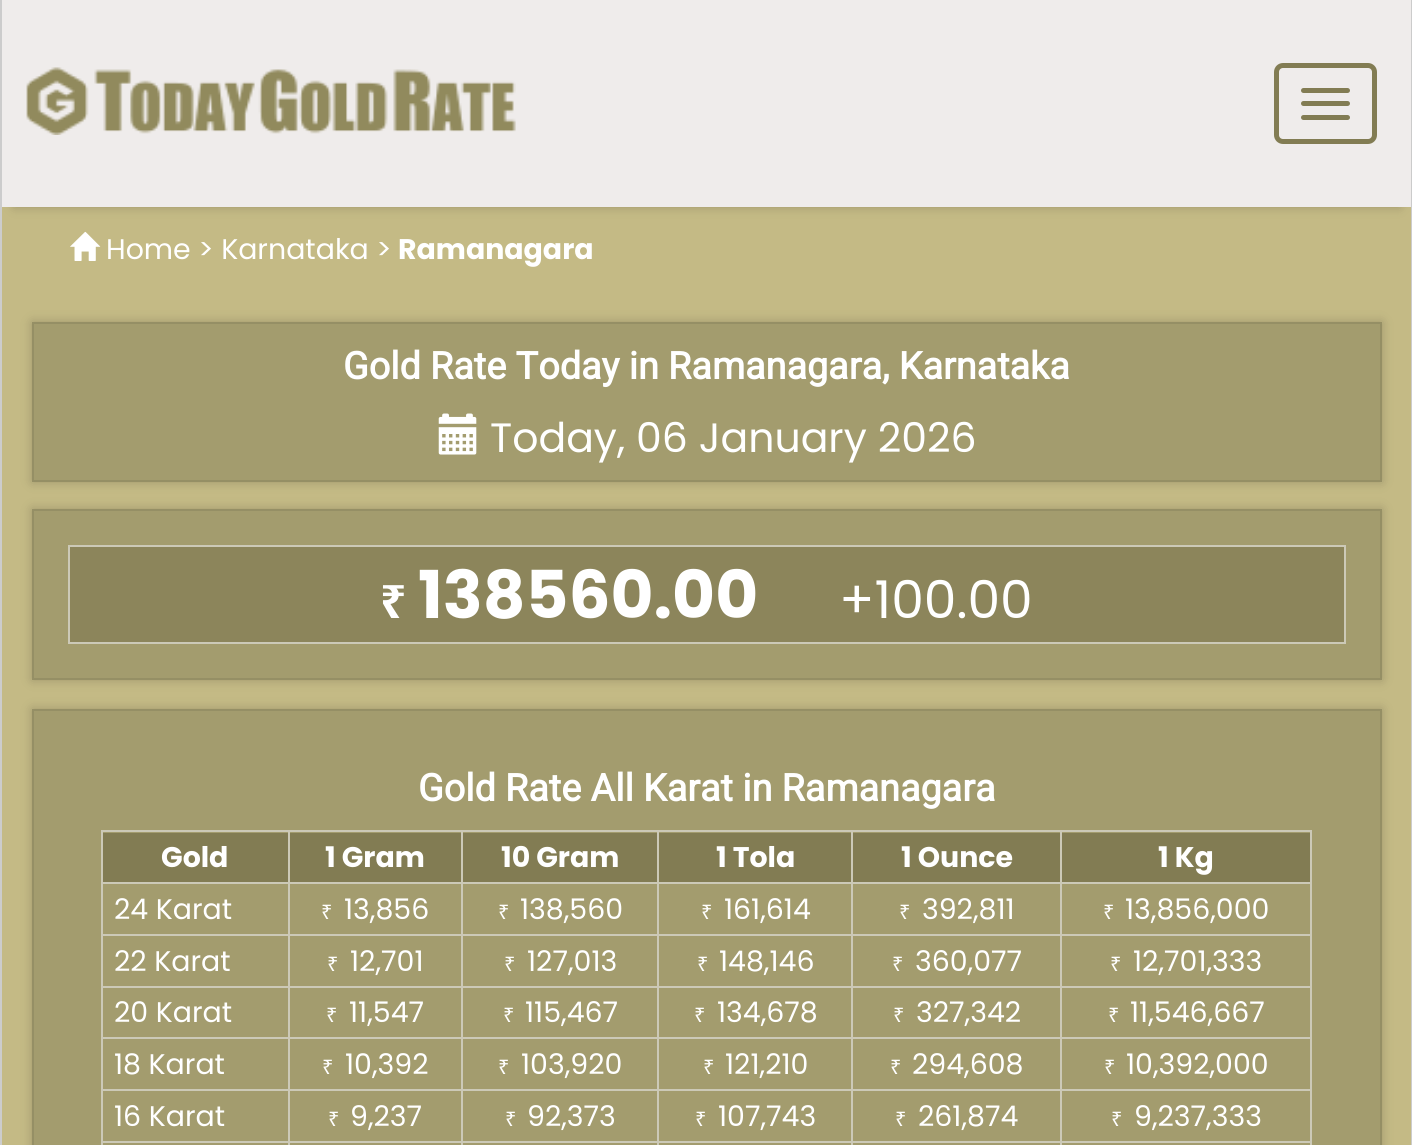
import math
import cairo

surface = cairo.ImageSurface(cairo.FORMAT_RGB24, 1412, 1145)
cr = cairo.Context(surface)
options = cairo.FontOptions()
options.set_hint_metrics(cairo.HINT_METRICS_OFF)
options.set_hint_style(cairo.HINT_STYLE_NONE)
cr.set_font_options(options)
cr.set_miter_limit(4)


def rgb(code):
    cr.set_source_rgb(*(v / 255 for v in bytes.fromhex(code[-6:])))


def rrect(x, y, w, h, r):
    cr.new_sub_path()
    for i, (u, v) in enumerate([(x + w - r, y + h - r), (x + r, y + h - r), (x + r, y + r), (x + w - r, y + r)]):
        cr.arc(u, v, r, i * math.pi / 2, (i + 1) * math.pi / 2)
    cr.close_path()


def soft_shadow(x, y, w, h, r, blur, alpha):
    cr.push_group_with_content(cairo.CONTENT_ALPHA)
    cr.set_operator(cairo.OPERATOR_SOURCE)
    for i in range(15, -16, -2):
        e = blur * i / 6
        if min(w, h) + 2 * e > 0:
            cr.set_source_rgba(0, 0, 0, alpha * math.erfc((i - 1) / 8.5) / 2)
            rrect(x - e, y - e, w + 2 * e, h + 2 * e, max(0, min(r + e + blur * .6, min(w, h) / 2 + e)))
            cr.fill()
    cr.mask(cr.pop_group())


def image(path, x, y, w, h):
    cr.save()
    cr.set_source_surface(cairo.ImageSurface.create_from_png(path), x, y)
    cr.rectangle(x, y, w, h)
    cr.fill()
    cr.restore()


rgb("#c4ba85")
cr.paint()
rgb("#cccccc")
cr.rectangle(1411, 0, 1, 1145)
cr.fill()
cr.rectangle(0, 0, 2, 1145)
cr.fill()
rgb("#000000")
soft_shadow(14, 23, 1386, 184, 0, 5.5, 0.2)
rgb("#efeceb")
cr.rectangle(2, 0, 1409, 207)
cr.fill()
image("img/1.png", 26, 67, 490, 68)
rrect(1276.5, 65.5, 98, 76, 6.5)
rgb("#827c53")
cr.set_line_width(5)
cr.stroke()
rrect(1301, 88, 49, 5, 2.5)
cr.fill()
rrect(1301, 101, 49, 5, 2.5)
cr.fill()
rrect(1301, 115, 49, 5, 2.5)
cr.fill()
image("img/2.png", 70, 231, 31, 30)
rgb("#000000")
soft_shadow(32, 322, 1350, 160, 0, 5.5, 0.2)
rgb("#a39c6e")
cr.rectangle(33, 323, 1348, 158)
cr.fill_preserve()
rgb("#958f65")
cr.set_line_width(2)
cr.stroke()
image("img/3.png", 438, 413, 39, 42)
rgb("#000000")
soft_shadow(32, 509, 1350, 171, 0, 5.5, 0.2)
rgb("#a39c6e")
cr.rectangle(33, 510, 1348, 169)
cr.fill_preserve()
rgb("#958f65")
cr.stroke()
rgb("#8c855b")
cr.rectangle(69, 546, 1276, 97)
cr.fill_preserve()
rgb("#ccc9b7")
cr.stroke()
rgb("#000000")
soft_shadow(32, 709, 1350, 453, 0, 5.5, 0.2)
rgb("#a39c6e")
cr.rectangle(33, 710, 1348, 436)
cr.fill_preserve()
rgb("#958f65")
cr.stroke()
for x, y, w, h, color in [
    (101, 830, 1211, 2, "#ccc9b7"),
    (1310, 830, 2, 315, "#ccc9b7"),
    (101, 830, 2, 315, "#ccc9b7"),
    (103, 833, 185, 49, "#827c53"),
    (290, 833, 171, 49, "#827c53"),
    (1060, 882, 252, 2, "#ccc9b7"),
    (1060, 934, 252, 2, "#ccc9b7"),
    (1060, 986, 252, 2, "#ccc9b7"),
    (1060, 1037, 252, 2, "#ccc9b7"),
    (1060, 1089, 252, 2, "#ccc9b7"),
    (1060, 1141, 252, 2, "#ccc9b7"),
    (1060, 1141, 2, 4, "#ccc9b7"),
    (851, 1141, 211, 2, "#ccc9b7"),
    (1060, 1089, 2, 54, "#ccc9b7"),
    (851, 1089, 211, 2, "#ccc9b7"),
    (1060, 1037, 2, 54, "#ccc9b7"),
    (851, 1037, 211, 2, "#ccc9b7"),
    (1060, 986, 2, 54, "#ccc9b7"),
    (851, 986, 211, 2, "#ccc9b7"),
    (1060, 934, 2, 54, "#ccc9b7"),
    (851, 934, 211, 2, "#ccc9b7"),
    (1060, 882, 2, 54, "#ccc9b7"),
    (851, 882, 211, 2, "#ccc9b7"),
    (851, 1141, 2, 4, "#ccc9b7"),
    (657, 1141, 196, 2, "#ccc9b7"),
    (851, 1089, 2, 54, "#ccc9b7"),
    (657, 1089, 196, 2, "#ccc9b7"),
    (851, 1037, 2, 54, "#ccc9b7"),
    (657, 1037, 196, 2, "#ccc9b7"),
    (851, 986, 2, 54, "#ccc9b7"),
    (657, 986, 196, 2, "#ccc9b7"),
    (851, 934, 2, 54, "#ccc9b7"),
    (657, 934, 196, 2, "#ccc9b7"),
    (851, 882, 2, 54, "#ccc9b7"),
    (657, 882, 196, 2, "#ccc9b7"),
    (657, 1141, 2, 4, "#ccc9b7"),
    (461, 1141, 198, 2, "#ccc9b7"),
    (657, 1089, 2, 54, "#ccc9b7"),
    (461, 1089, 198, 2, "#ccc9b7"),
    (657, 1037, 2, 54, "#ccc9b7"),
    (461, 1037, 198, 2, "#ccc9b7"),
    (657, 986, 2, 54, "#ccc9b7"),
    (461, 986, 198, 2, "#ccc9b7"),
    (657, 934, 2, 54, "#ccc9b7"),
    (461, 934, 198, 2, "#ccc9b7"),
    (657, 882, 2, 54, "#ccc9b7"),
    (461, 882, 198, 2, "#ccc9b7"),
    (461, 1141, 2, 4, "#ccc9b7"),
    (288, 1141, 176, 2, "#ccc9b7"),
    (461, 1089, 2, 54, "#ccc9b7"),
    (288, 1089, 176, 2, "#ccc9b7"),
    (461, 1037, 2, 54, "#ccc9b7"),
    (288, 1037, 176, 2, "#ccc9b7"),
    (461, 986, 2, 54, "#ccc9b7"),
    (288, 986, 176, 2, "#ccc9b7"),
    (461, 934, 2, 54, "#ccc9b7"),
    (288, 934, 176, 2, "#ccc9b7"),
    (461, 882, 2, 54, "#ccc9b7"),
    (288, 882, 176, 2, "#ccc9b7"),
    (288, 1141, 2, 4, "#ccc9b7"),
    (101, 1141, 189, 2, "#ccc9b7"),
    (288, 1089, 2, 54, "#ccc9b7"),
    (101, 1089, 189, 2, "#ccc9b7"),
    (288, 1037, 2, 54, "#ccc9b7"),
    (101, 1037, 189, 2, "#ccc9b7"),
    (288, 986, 2, 54, "#ccc9b7"),
    (101, 986, 189, 2, "#ccc9b7"),
    (288, 934, 2, 54, "#ccc9b7"),
    (101, 934, 189, 2, "#ccc9b7"),
    (288, 882, 2, 54, "#ccc9b7"),
    (101, 882, 189, 2, "#ccc9b7"),
    (288, 830, 2, 54, "#ccc9b7"),
    (463, 833, 194, 49, "#827c53"),
    (461, 830, 2, 54, "#ccc9b7"),
    (659, 833, 192, 49, "#827c53"),
    (657, 830, 2, 54, "#ccc9b7"),
    (853, 833, 207, 49, "#827c53"),
    (851, 830, 2, 54, "#ccc9b7"),
    (1062, 833, 248, 49, "#827c53"),
    (1060, 830, 2, 54, "#ccc9b7"),
]:
    rgb(color)
    cr.rectangle(x, y, w, h)
    cr.fill()
cr.select_font_face("Poppins")
cr.set_font_size(28.4)
rgb("#ffffff")
cr.move_to(106, 259)
cr.show_text("Home > Karnataka >")
cr.select_font_face("Poppins", cairo.FONT_SLANT_NORMAL, cairo.FONT_WEIGHT_BOLD)
cr.move_to(398, 259)
cr.show_text("Ramanagara")
cr.select_font_face("Roboto", cairo.FONT_SLANT_NORMAL, cairo.FONT_WEIGHT_BOLD)
cr.set_font_size(37.75)
cr.move_to(343, 379)
cr.show_text("Gold Rate Today in Ramanagara, Karnataka")
cr.select_font_face("Poppins")
cr.set_font_size(41)
cr.move_to(490, 452)
cr.show_text("Today, 06 January 2026")
cr.select_font_face("Noto Sans", cairo.FONT_SLANT_NORMAL, cairo.FONT_WEIGHT_BOLD)
cr.set_font_size(46)
cr.move_to(380, 618)
cr.show_text("₹")
cr.select_font_face("Poppins", cairo.FONT_SLANT_NORMAL, cairo.FONT_WEIGHT_BOLD)
cr.set_font_size(66)
cr.move_to(418, 618)
cr.show_text("138560.00")
cr.select_font_face("Poppins")
cr.set_font_size(52)
cr.move_to(839, 618)
cr.show_text("+100.00")
cr.select_font_face("Roboto", cairo.FONT_SLANT_NORMAL, cairo.FONT_WEIGHT_BOLD)
cr.set_font_size(37.75)
cr.move_to(418, 801)
cr.show_text("Gold Rate All Karat in Ramanagara")
cr.select_font_face("Poppins", cairo.FONT_SLANT_NORMAL, cairo.FONT_WEIGHT_BOLD)
cr.set_font_size(28.4)
for x, y, s in [
    (161, 867, "Gold"),
    (325, 867, "1 Gram"),
    (501, 867, "10 Gram"),
    (716, 867, "1 Tola"),
    (901, 867, "1 Ounce"),
    (1158, 867, "1 Kg"),
]:
    cr.move_to(x, y)
    cr.show_text(s)
cr.select_font_face("Poppins")
cr.move_to(114, 919)
cr.show_text("24 Karat")
cr.select_font_face("Noto Sans")
cr.set_font_size(20)
cr.move_to(321, 919)
cr.show_text("₹")
cr.select_font_face("Poppins")
cr.set_font_size(28.4)
cr.move_to(344, 919)
cr.show_text("13,856")
cr.select_font_face("Noto Sans")
cr.set_font_size(20)
cr.move_to(498, 919)
cr.show_text("₹")
cr.select_font_face("Poppins")
cr.set_font_size(28.4)
cr.move_to(520, 919)
cr.show_text("138,560")
cr.select_font_face("Noto Sans")
cr.set_font_size(20)
cr.move_to(701, 919)
cr.show_text("₹")
cr.select_font_face("Poppins")
cr.set_font_size(28.4)
cr.move_to(724, 919)
cr.show_text("161,614")
cr.select_font_face("Noto Sans")
cr.set_font_size(20)
cr.move_to(899, 919)
cr.show_text("₹")
cr.select_font_face("Poppins")
cr.set_font_size(28.4)
cr.move_to(922, 919)
cr.show_text("392,811")
cr.select_font_face("Noto Sans")
cr.set_font_size(20)
cr.move_to(1103, 919)
cr.show_text("₹")
cr.select_font_face("Poppins")
cr.set_font_size(28.4)
cr.move_to(1125, 919)
cr.show_text("13,856,000")
cr.move_to(114, 971)
cr.show_text("22 Karat")
cr.select_font_face("Noto Sans")
cr.set_font_size(20)
cr.move_to(327, 971)
cr.show_text("₹")
cr.select_font_face("Poppins")
cr.set_font_size(28.4)
cr.move_to(350, 971)
cr.show_text("12,701")
cr.select_font_face("Noto Sans")
cr.set_font_size(20)
cr.move_to(504, 971)
cr.show_text("₹")
cr.select_font_face("Poppins")
cr.set_font_size(28.4)
cr.move_to(527, 971)
cr.show_text("127,013")
cr.select_font_face("Noto Sans")
cr.set_font_size(20)
cr.move_to(697, 971)
cr.show_text("₹")
cr.select_font_face("Poppins")
cr.set_font_size(28.4)
cr.move_to(719, 971)
cr.show_text("148,146")
cr.select_font_face("Noto Sans")
cr.set_font_size(20)
cr.move_to(892, 971)
cr.show_text("₹")
cr.select_font_face("Poppins")
cr.set_font_size(28.4)
cr.move_to(915, 971)
cr.show_text("360,077")
cr.select_font_face("Noto Sans")
cr.set_font_size(20)
cr.move_to(1110, 971)
cr.show_text("₹")
cr.select_font_face("Poppins")
cr.set_font_size(28.4)
cr.move_to(1133, 971)
cr.show_text("12,701,333")
cr.move_to(114, 1022)
cr.show_text("20 Karat")
cr.select_font_face("Noto Sans")
cr.set_font_size(20)
cr.move_to(326, 1022)
cr.show_text("₹")
cr.select_font_face("Poppins")
cr.set_font_size(28.4)
cr.move_to(349, 1022)
cr.show_text("11,547")
cr.select_font_face("Noto Sans")
cr.set_font_size(20)
cr.move_to(503, 1022)
cr.show_text("₹")
cr.select_font_face("Poppins")
cr.set_font_size(28.4)
cr.move_to(525, 1022)
cr.show_text("115,467")
cr.select_font_face("Noto Sans")
cr.set_font_size(20)
cr.move_to(694, 1022)
cr.show_text("₹")
cr.select_font_face("Poppins")
cr.set_font_size(28.4)
cr.move_to(717, 1022)
cr.show_text("134,678")
cr.select_font_face("Noto Sans")
cr.set_font_size(20)
cr.move_to(893, 1022)
cr.show_text("₹")
cr.select_font_face("Poppins")
cr.set_font_size(28.4)
cr.move_to(916, 1022)
cr.show_text("327,342")
cr.select_font_face("Noto Sans")
cr.set_font_size(20)
cr.move_to(1108, 1022)
cr.show_text("₹")
cr.select_font_face("Poppins")
cr.set_font_size(28.4)
cr.move_to(1130, 1022)
cr.show_text("11,546,667")
cr.move_to(114, 1074)
cr.show_text("18 Karat")
cr.select_font_face("Noto Sans")
cr.set_font_size(20)
cr.move_to(322, 1074)
cr.show_text("₹")
cr.select_font_face("Poppins")
cr.set_font_size(28.4)
cr.move_to(345, 1074)
cr.show_text("10,392")
cr.select_font_face("Noto Sans")
cr.set_font_size(20)
cr.move_to(498, 1074)
cr.show_text("₹")
cr.select_font_face("Poppins")
cr.set_font_size(28.4)
cr.move_to(521, 1074)
cr.show_text("103,920")
cr.select_font_face("Noto Sans")
cr.set_font_size(20)
cr.move_to(703, 1074)
cr.show_text("₹")
cr.select_font_face("Poppins")
cr.set_font_size(28.4)
cr.move_to(725, 1074)
cr.show_text("121,210")
cr.select_font_face("Noto Sans")
cr.set_font_size(20)
cr.move_to(890, 1074)
cr.show_text("₹")
cr.select_font_face("Poppins")
cr.set_font_size(28.4)
cr.move_to(912, 1074)
cr.show_text("294,608")
cr.select_font_face("Noto Sans")
cr.set_font_size(20)
cr.move_to(1104, 1074)
cr.show_text("₹")
cr.select_font_face("Poppins")
cr.set_font_size(28.4)
cr.move_to(1126, 1074)
cr.show_text("10,392,000")
cr.move_to(114, 1126)
cr.show_text("16 Karat")
cr.select_font_face("Noto Sans")
cr.set_font_size(20)
cr.move_to(328, 1126)
cr.show_text("₹")
cr.select_font_face("Poppins")
cr.set_font_size(28.4)
cr.move_to(350, 1126)
cr.show_text("9,237")
cr.select_font_face("Noto Sans")
cr.set_font_size(20)
cr.move_to(505, 1126)
cr.show_text("₹")
cr.select_font_face("Poppins")
cr.set_font_size(28.4)
cr.move_to(527, 1126)
cr.show_text("92,373")
cr.select_font_face("Noto Sans")
cr.set_font_size(20)
cr.move_to(695, 1126)
cr.show_text("₹")
cr.select_font_face("Poppins")
cr.set_font_size(28.4)
cr.move_to(718, 1126)
cr.show_text("107,743")
cr.select_font_face("Noto Sans")
cr.set_font_size(20)
cr.move_to(895, 1126)
cr.show_text("₹")
cr.select_font_face("Poppins")
cr.set_font_size(28.4)
cr.move_to(918, 1126)
cr.show_text("261,874")
cr.select_font_face("Noto Sans")
cr.set_font_size(20)
cr.move_to(1111, 1126)
cr.show_text("₹")
cr.select_font_face("Poppins")
cr.set_font_size(28.4)
cr.move_to(1134, 1126)
cr.show_text("9,237,333")
surface.write_to_png("page.png")
